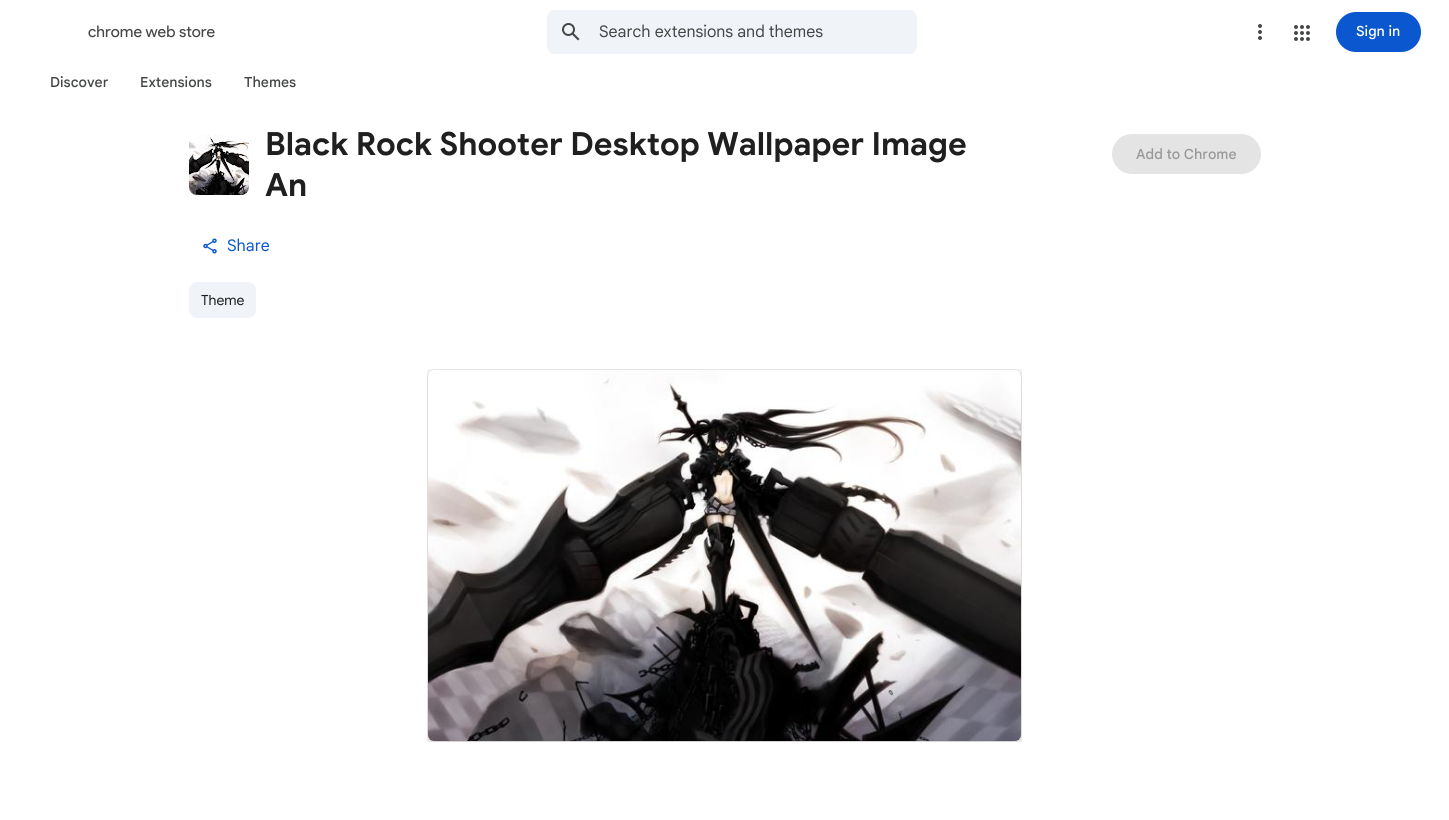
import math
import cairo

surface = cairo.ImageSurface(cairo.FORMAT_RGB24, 1449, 820)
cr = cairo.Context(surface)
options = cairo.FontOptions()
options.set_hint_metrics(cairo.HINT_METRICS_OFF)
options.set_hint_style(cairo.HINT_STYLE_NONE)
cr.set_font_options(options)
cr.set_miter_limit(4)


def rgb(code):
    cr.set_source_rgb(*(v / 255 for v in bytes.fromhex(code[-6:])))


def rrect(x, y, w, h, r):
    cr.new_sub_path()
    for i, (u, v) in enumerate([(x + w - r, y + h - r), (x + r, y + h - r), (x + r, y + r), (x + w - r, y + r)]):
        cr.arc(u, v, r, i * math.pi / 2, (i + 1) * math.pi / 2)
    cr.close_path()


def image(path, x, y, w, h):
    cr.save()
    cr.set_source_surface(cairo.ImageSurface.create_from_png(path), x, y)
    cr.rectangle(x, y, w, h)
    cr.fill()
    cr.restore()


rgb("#ffffff")
cr.paint()
image("img/1.png", 61, 21, 6, 1)
rgb("#f0f4f9")
rrect(547, 10, 370, 44, 8)
cr.fill()
image("img/2.png", 562, 23, 18, 18)
image("img/3.png", 1258, 24, 4, 16)
image("img/4.png", 1294, 25, 16, 16)
rgb("#0b57d0")
rrect(1336, 12, 85, 40, 20)
cr.fill()
image("img/5.png", 189, 135, 60, 60)
rgb("#e4e4e4")
rrect(1112, 134, 149, 40, 20)
cr.fill()
image("img/6.png", 203, 238, 14, 16)
rgb("#f0f4f9")
rrect(189, 282, 67, 36, 8)
cr.fill()
image("img/7.png", 427, 369, 595, 373)
cr.select_font_face("Product Sans")
cr.set_font_size(16)
rgb("#444746")
cr.move_to(88, 37)
cr.show_text("chrome web store")
cr.select_font_face("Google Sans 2")
cr.move_to(599, 37)
cr.show_text("Search extensions and themes")
cr.select_font_face("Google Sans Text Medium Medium")
cr.set_font_size(14)
rgb("#ffffff")
cr.move_to(1356, 36)
cr.show_text("Sign in")
rgb("#444746")
for x, y, s in [
    (50, 87, "Discover"),
    (140, 87, "Extensions"),
    (244, 87, "Themes"),
]:
    cr.move_to(x, y)
    cr.show_text(s)
cr.select_font_face("Google Sans", cairo.FONT_SLANT_NORMAL, cairo.FONT_WEIGHT_BOLD)
cr.set_font_size(32)
rgb("#1f1f1f")
cr.move_to(265, 155)
cr.show_text("Black Rock Shooter Desktop Wallpaper Image")
cr.move_to(265, 196)
cr.show_text("An")
cr.select_font_face("Google Sans Text Medium Medium")
cr.set_font_size(14)
rgb("#999999")
cr.move_to(1136, 159)
cr.show_text("Add to Chrome")
cr.select_font_face("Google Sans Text")
cr.set_font_size(16)
rgb("#0b57d0")
cr.move_to(227, 251)
cr.show_text("Share")
cr.select_font_face("Google Sans")
cr.set_font_size(14)
rgb("#1f1f1f")
cr.move_to(201, 305)
cr.show_text("Theme")
surface.write_to_png("page.png")
